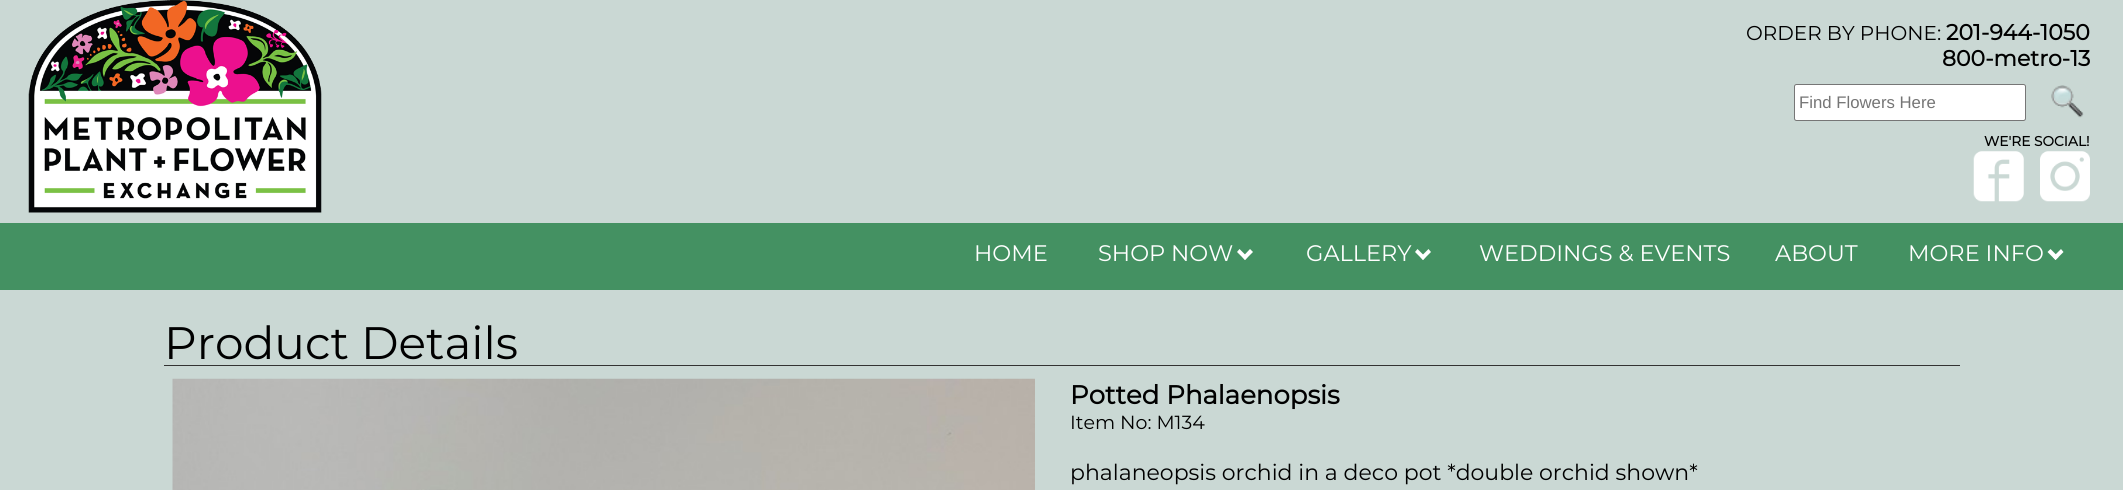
import math
import cairo

surface = cairo.ImageSurface(cairo.FORMAT_RGB24, 2123, 490)
cr = cairo.Context(surface)
options = cairo.FontOptions()
options.set_hint_metrics(cairo.HINT_METRICS_OFF)
options.set_hint_style(cairo.HINT_STYLE_NONE)
cr.set_font_options(options)
cr.set_miter_limit(4)


def rgb(code):
    cr.set_source_rgb(*(v / 255 for v in bytes.fromhex(code[-6:])))


def rrect(x, y, w, h, r):
    cr.new_sub_path()
    for i, (u, v) in enumerate([(x + w - r, y + h - r), (x + r, y + h - r), (x + r, y + r), (x + w - r, y + r)]):
        cr.arc(u, v, r, i * math.pi / 2, (i + 1) * math.pi / 2)
    cr.close_path()


def image(path, x, y, w, h):
    cr.save()
    cr.set_source_surface(cairo.ImageSurface.create_from_png(path), x, y)
    cr.rectangle(x, y, w, h)
    cr.fill()
    cr.restore()


rgb("#cad8d4")
cr.paint()
image("img/1.png", 28, 0, 294, 213)
rgb("#ffffff")
rrect(1794.5, 84.5, 231, 36, 2)
cr.fill_preserve()
rgb("#767676")
cr.set_line_width(1)
cr.stroke()
image("img/2.png", 2051, 85, 33, 33)
image("img/3.png", 1973, 151, 51, 51)
image("img/4.png", 2040, 151, 50, 51)
rgb("#449162")
cr.rectangle(0, 223, 2123, 67)
cr.fill()
rgb("#ffffff")
cr.new_path()
cr.move_to(1250, 249)
cr.line_to(1253, 252)
cr.line_to(1245, 260)
cr.line_to(1242.5, 257)
cr.close_path()
cr.fill()
cr.new_path()
cr.move_to(1239.5, 249)
cr.line_to(1247.5, 257)
cr.line_to(1245, 260)
cr.line_to(1237, 252)
cr.close_path()
cr.fill()
cr.new_path()
cr.move_to(1428.5, 249)
cr.line_to(1431, 252)
cr.line_to(1423, 260)
cr.line_to(1420.5, 257)
cr.close_path()
cr.fill()
cr.new_path()
cr.move_to(1417.5, 249)
cr.line_to(1425.5, 257)
cr.line_to(1423, 260)
cr.line_to(1415, 252)
cr.close_path()
cr.fill()
cr.new_path()
cr.move_to(2061, 249)
cr.line_to(2063.5, 252)
cr.line_to(2055.5, 260)
cr.line_to(2053, 257)
cr.close_path()
cr.fill()
cr.new_path()
cr.move_to(2050.5, 249)
cr.line_to(2058.5, 257)
cr.line_to(2055.5, 260)
cr.line_to(2047.5, 252)
cr.close_path()
cr.fill()
rgb("#333333")
cr.rectangle(164, 365, 1796, 1)
cr.fill()
image("img/5.png", 172, 378, 863, 112)
cr.select_font_face("Montserrat")
cr.set_font_size(20)
rgb("#000000")
cr.move_to(1746, 40)
cr.show_text("ORDER BY PHONE:")
cr.select_font_face("Montserrat", cairo.FONT_SLANT_NORMAL, cairo.FONT_WEIGHT_BOLD)
cr.set_font_size(22)
cr.move_to(1946, 40)
cr.show_text("201-944-1050")
cr.move_to(1942, 66)
cr.show_text("800-metro-13")
cr.select_font_face("Liberation Sans")
cr.set_font_size(16.75)
rgb("#757575")
cr.move_to(1799, 108)
cr.show_text("Find Flowers Here")
cr.select_font_face("Montserrat", cairo.FONT_SLANT_NORMAL, cairo.FONT_WEIGHT_BOLD)
cr.set_font_size(13.75)
rgb("#000000")
cr.move_to(1984, 146)
cr.show_text("WE'RE SOCIAL!")
cr.select_font_face("Montserrat")
cr.set_font_size(22.5)
rgb("#ffffff")
for x, y, s in [
    (974, 261, "HOME"),
    (1098, 261, "SHOP NOW"),
    (1306, 261, "GALLERY"),
    (1479, 261, "WEDDINGS & EVENTS"),
    (1775, 261, "ABOUT"),
    (1908, 261, "MORE INFO"),
]:
    cr.move_to(x, y)
    cr.show_text(s)
cr.set_font_size(45.5)
rgb("#000000")
cr.move_to(164, 359)
cr.show_text("Product Details")
cr.select_font_face("Montserrat", cairo.FONT_SLANT_NORMAL, cairo.FONT_WEIGHT_BOLD)
cr.set_font_size(26)
cr.move_to(1070, 404)
cr.show_text("Potted Phalaenopsis")
cr.select_font_face("Montserrat")
cr.set_font_size(19)
cr.move_to(1070, 429)
cr.show_text("Item No: M134")
cr.set_font_size(22)
cr.move_to(1070, 480)
cr.show_text("phalaneopsis orchid in a deco pot *double orchid shown*")
surface.write_to_png("page.png")
